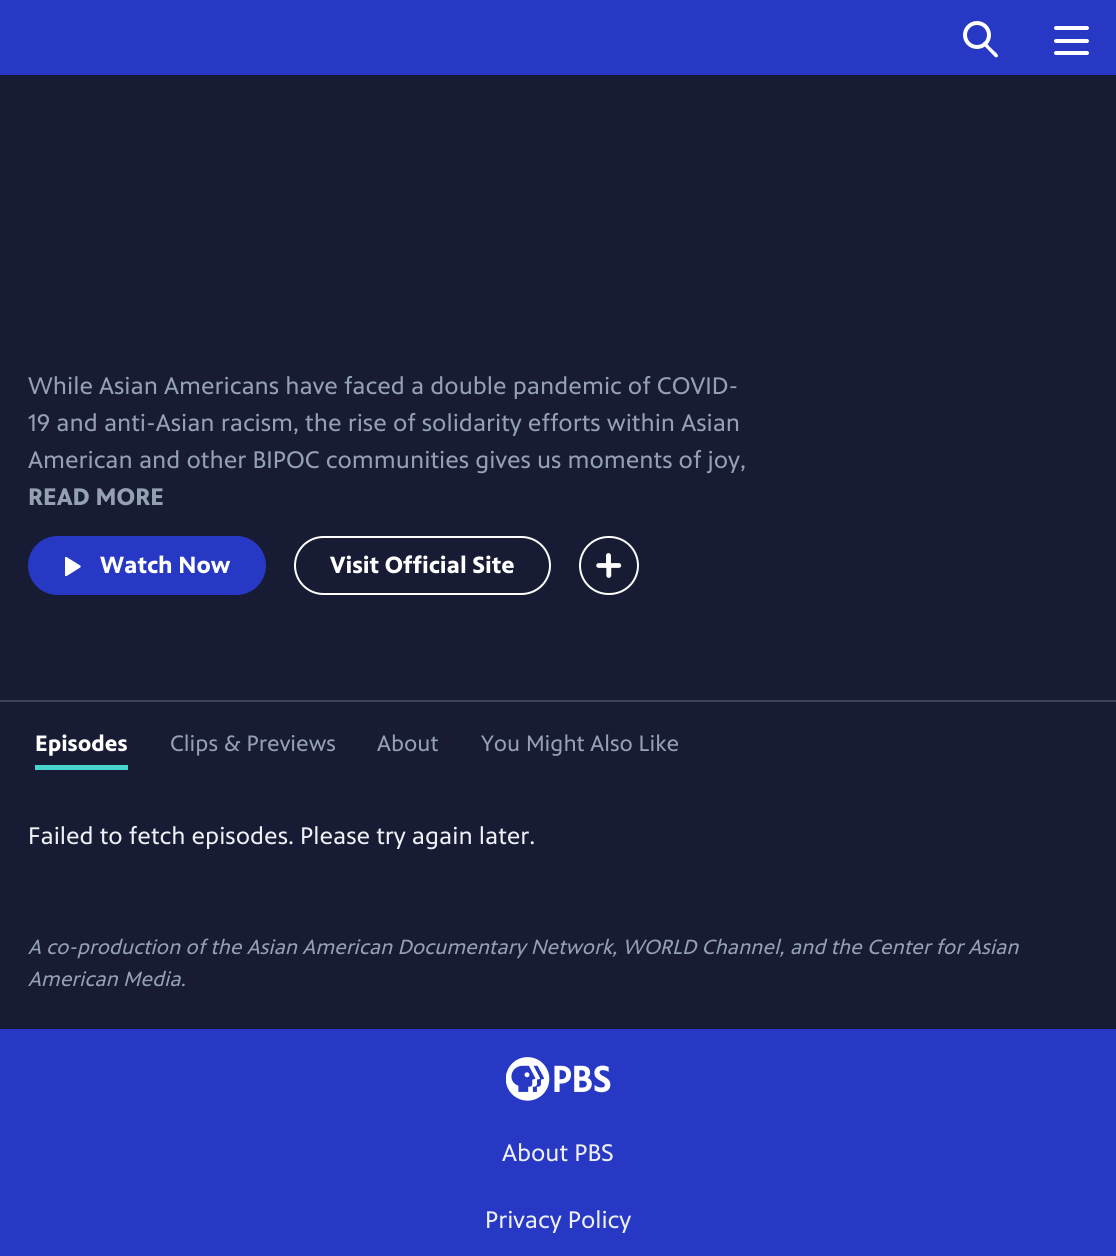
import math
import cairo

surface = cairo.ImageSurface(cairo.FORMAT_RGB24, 1116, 1256)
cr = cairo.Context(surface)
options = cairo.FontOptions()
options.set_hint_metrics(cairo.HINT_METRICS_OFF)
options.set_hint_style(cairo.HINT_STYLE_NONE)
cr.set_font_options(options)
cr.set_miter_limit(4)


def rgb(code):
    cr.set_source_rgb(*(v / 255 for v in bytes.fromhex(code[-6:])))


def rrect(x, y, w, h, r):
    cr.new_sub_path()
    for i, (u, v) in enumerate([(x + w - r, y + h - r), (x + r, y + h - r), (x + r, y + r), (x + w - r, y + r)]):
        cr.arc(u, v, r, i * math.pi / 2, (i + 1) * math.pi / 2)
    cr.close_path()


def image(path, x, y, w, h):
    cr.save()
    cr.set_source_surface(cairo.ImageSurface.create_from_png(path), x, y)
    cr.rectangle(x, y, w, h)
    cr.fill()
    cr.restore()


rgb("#2638c4")
cr.paint()
cr.arc(977, 35, 12, 0, 2 * math.pi)
rgb("#ffffff")
cr.set_line_width(4)
cr.stroke()
cr.new_path()
cr.move_to(995, 57)
cr.line_to(983, 44.5)
cr.line_to(983, 43)
cr.curve_to(985, 40, 989, 46, 989.5, 46.5)
cr.line_to(993.5, 50.5)
cr.curve_to(994.5, 51.5, 997.5, 53.5, 998, 55.5)
cr.curve_to(998.5, 57, 996, 58, 995, 57)
cr.close_path()
cr.fill()
rrect(1054, 26, 35, 4, 2)
cr.fill()
rrect(1054, 39, 35, 4, 2)
cr.fill()
rrect(1054, 51, 35, 4, 2)
cr.fill()
rgb("#171b33")
cr.rectangle(0, 75, 1116, 954)
cr.fill()
rgb("#2638c4")
rrect(28, 536, 238, 59, 29.5)
cr.fill()
image("img/1.png", 65, 557, 16, 19)
rrect(295, 537, 255, 57, 28.5)
rgb("#ffffff")
cr.set_line_width(2)
cr.stroke()
rrect(580, 537, 58, 57, 28.5)
cr.stroke()
image("img/2.png", 596, 553, 26, 25)
rgb("#3a455c")
cr.rectangle(0, 700, 1116, 2)
cr.fill()
rgb("#46d4cd")
cr.rectangle(35, 765, 93, 5)
cr.fill()
image("img/3.png", 506, 1057, 105, 44)
cr.select_font_face("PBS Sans")
cr.set_font_size(24.5)
rgb("#94a1b2")
for x, y, s in [
    (28, 394, "While Asian Americans have faced a double pandemic of COVID-"),
    (28, 431, "19 and anti-Asian racism, the rise of solidarity efforts within Asian"),
    (28, 468, "American and other BIPOC communities gives us moments of joy,"),
]:
    cr.move_to(x, y)
    cr.show_text(s)
cr.select_font_face("PBS Sans", cairo.FONT_SLANT_NORMAL, cairo.FONT_WEIGHT_BOLD)
cr.move_to(28, 505)
cr.show_text("READ MORE")
cr.set_font_size(24)
rgb("#ffffff")
cr.move_to(100, 573)
cr.show_text("Watch Now")
cr.move_to(330, 573)
cr.show_text("Visit Official Site")
cr.set_font_size(22.75)
cr.move_to(35, 751)
cr.show_text("Episodes")
cr.select_font_face("PBS Sans")
rgb("#94a1b2")
for x, y, s in [
    (170, 751, "Clips & Previews"),
    (377, 751, "About"),
    (481, 751, "You Might Also Like"),
]:
    cr.move_to(x, y)
    cr.show_text(s)
cr.set_font_size(24.5)
rgb("#eef0f5")
cr.move_to(28, 844)
cr.show_text("Failed to fetch episodes. Please try again later.")
cr.select_font_face("PBS Sans", cairo.FONT_SLANT_ITALIC)
cr.set_font_size(21)
rgb("#94a1b2")
cr.move_to(28, 954)
cr.show_text("A co-production of the Asian American Documentary Network, WORLD Channel, and the Center for Asian")
cr.move_to(28, 986)
cr.show_text("American Media.")
cr.select_font_face("PBS Sans")
cr.set_font_size(24.5)
rgb("#eef0f5")
cr.move_to(502, 1161)
cr.show_text("About PBS")
cr.move_to(485, 1228)
cr.show_text("Privacy Policy")
surface.write_to_png("page.png")
